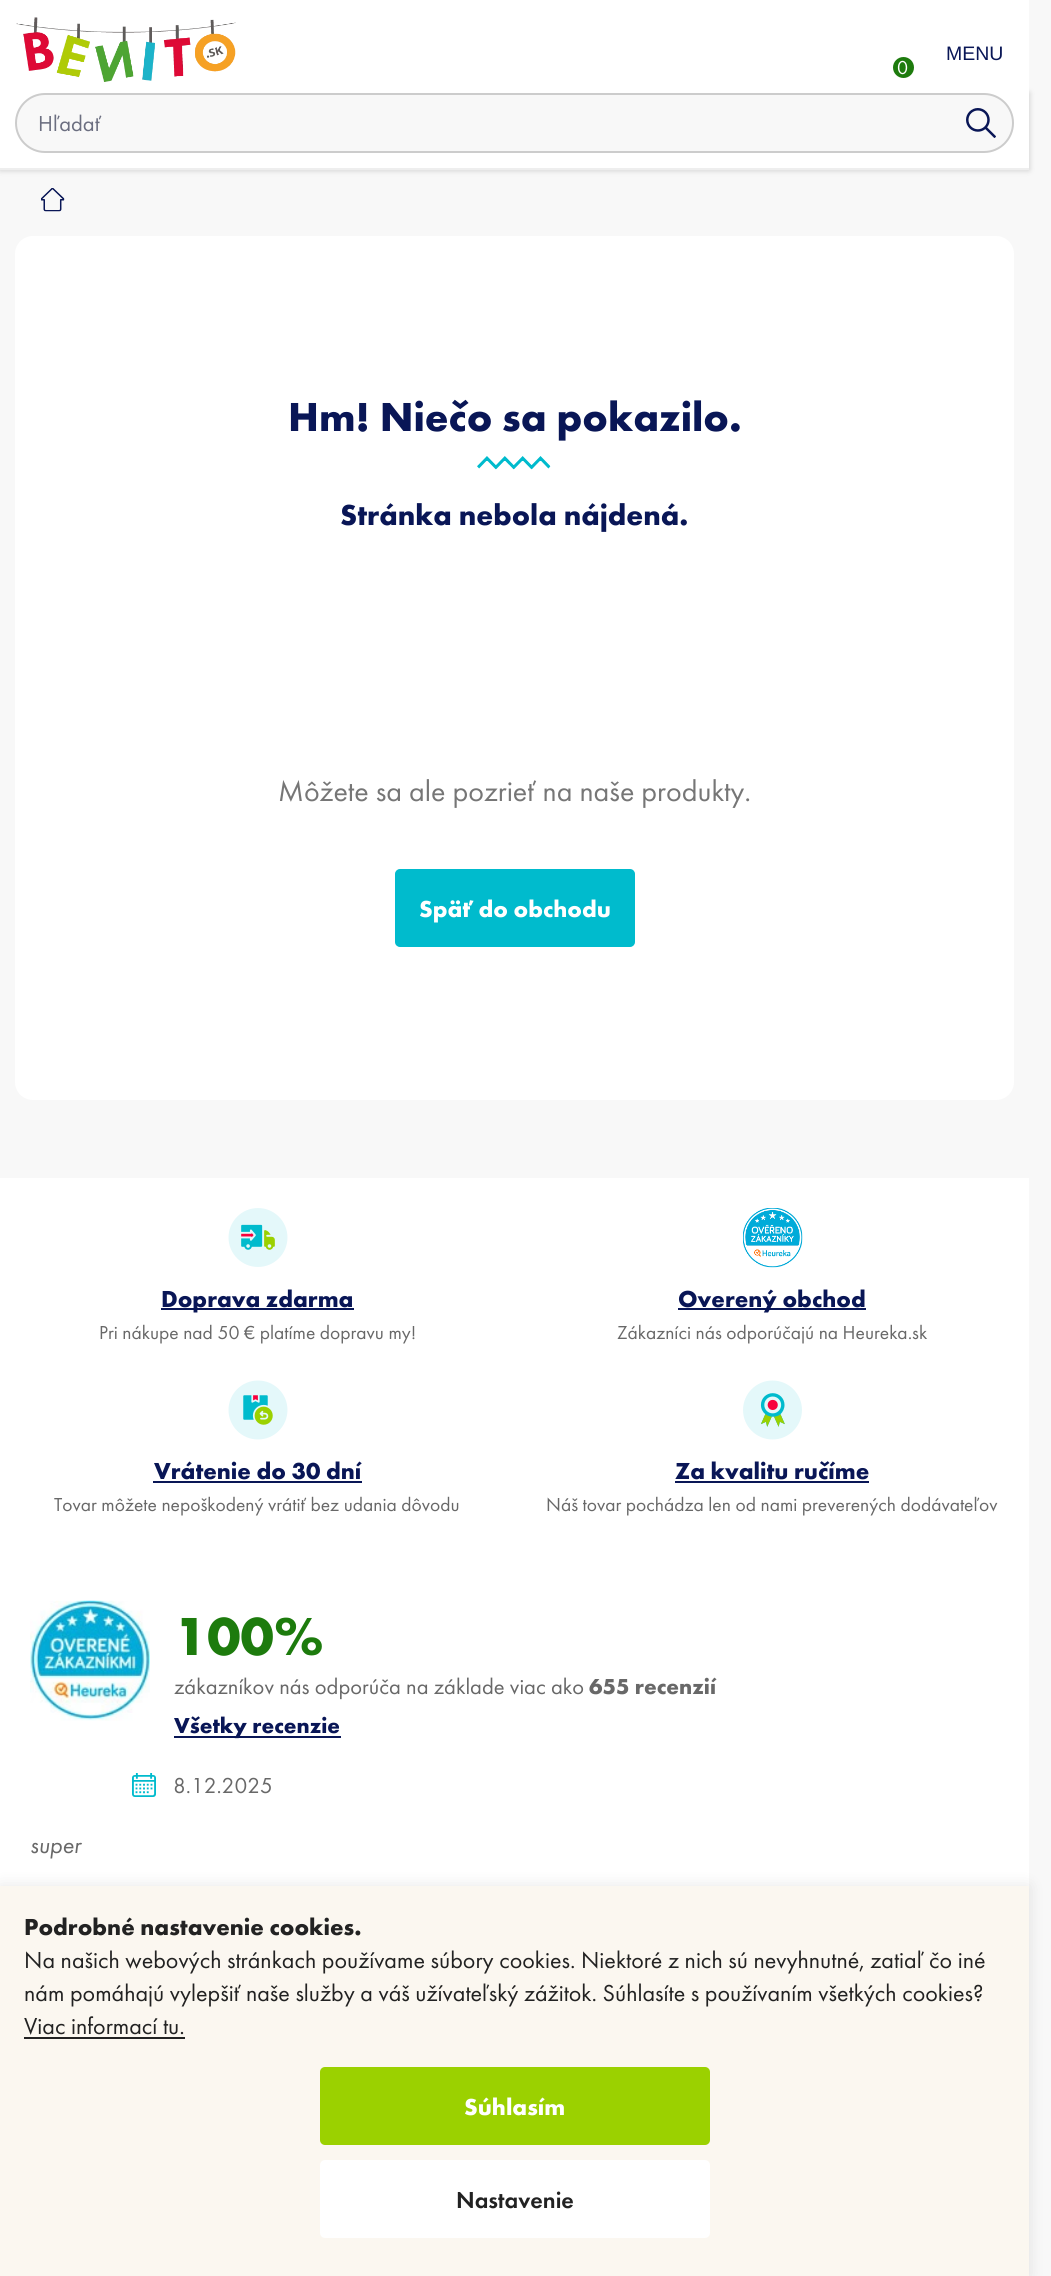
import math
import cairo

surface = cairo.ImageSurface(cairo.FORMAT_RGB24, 1051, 2276)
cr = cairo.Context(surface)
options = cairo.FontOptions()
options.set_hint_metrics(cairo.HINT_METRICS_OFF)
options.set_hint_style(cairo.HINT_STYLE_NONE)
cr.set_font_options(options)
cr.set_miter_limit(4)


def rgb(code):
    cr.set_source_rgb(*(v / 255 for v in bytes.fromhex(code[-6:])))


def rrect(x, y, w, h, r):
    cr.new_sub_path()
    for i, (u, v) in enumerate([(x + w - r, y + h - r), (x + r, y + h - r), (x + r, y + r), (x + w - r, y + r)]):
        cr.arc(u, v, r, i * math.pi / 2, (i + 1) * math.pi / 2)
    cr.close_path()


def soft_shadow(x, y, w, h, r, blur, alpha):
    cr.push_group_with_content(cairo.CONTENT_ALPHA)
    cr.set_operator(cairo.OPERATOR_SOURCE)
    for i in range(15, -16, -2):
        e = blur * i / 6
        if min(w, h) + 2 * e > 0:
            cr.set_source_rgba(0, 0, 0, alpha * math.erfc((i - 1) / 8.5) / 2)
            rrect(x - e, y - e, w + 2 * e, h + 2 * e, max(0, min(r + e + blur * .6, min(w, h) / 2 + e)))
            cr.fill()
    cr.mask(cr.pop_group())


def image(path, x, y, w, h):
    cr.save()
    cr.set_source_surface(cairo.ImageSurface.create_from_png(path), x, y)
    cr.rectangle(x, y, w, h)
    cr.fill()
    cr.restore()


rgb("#f8f8f8")
cr.paint()
rgb("#000000")
soft_shadow(0, 93, 1029, 77, 0, 3, 0.2)
rgb("#ffffff")
cr.rectangle(0, 0, 1029, 168)
cr.fill()
rgb("#eeeeee")
cr.rectangle(0, 168, 1029, 2)
cr.fill()
image("img/1.png", 16, 17, 220, 65)
rgb("#1d7b0d")
cr.arc(903.5, 67.5, 12, 0, 2 * math.pi)
cr.fill_preserve()
rgb("#ffffff")
cr.set_line_width(3)
cr.stroke()
rgb("#f8f8f8")
rrect(16, 94, 997, 58, 29)
cr.fill_preserve()
rgb("#cccccc")
cr.set_line_width(2)
cr.stroke()
image("img/2.png", 966, 108, 30, 30)
image("img/3.png", 41, 188, 24, 24)
rgb("#ffffff")
rrect(15, 236, 999, 864, 18)
cr.fill()
image("img/4.png", 477, 456, 74, 14)
rgb("#00bbcd")
rrect(396, 870, 238, 76, 4)
cr.fill_preserve()
cr.stroke()
rgb("#ffffff")
cr.rectangle(0, 1178, 1029, 708)
cr.fill()
image("img/5.png", 228, 1208, 60, 59)
rgb("#091656")
cr.rectangle(161, 1308, 193, 2)
cr.fill()
image("img/6.png", 743, 1208, 60, 60)
cr.rectangle(678, 1308, 188, 2)
cr.fill()
image("img/7.png", 228, 1380, 60, 60)
cr.rectangle(153, 1481, 209, 2)
cr.fill()
image("img/8.png", 743, 1380, 59, 60)
cr.rectangle(675, 1481, 194, 2)
cr.fill()
image("img/9.png", 30, 1600, 120, 121)
cr.rectangle(174, 1736, 167, 2)
cr.fill()
image("img/10.png", 132, 1773, 24, 24)
rgb("#000000")
soft_shadow(0, 1886, 1029, 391, 0, 7.5, 0.1)
rgb("#fbf7f0")
cr.rectangle(0, 1886, 1029, 390)
cr.fill()
rgb("#222222")
cr.rectangle(24, 2037, 161, 2)
cr.fill()
rgb("#9bd100")
rrect(320, 2067, 390, 78, 5)
cr.fill()
rgb("#ffffff")
rrect(321.5, 2161.5, 387, 75, 3.5)
cr.fill_preserve()
cr.set_line_width(3)
cr.stroke()
cr.select_font_face("Liberation Sans")
cr.set_font_size(19.5)
rgb("#091656")
cr.move_to(946, 60)
cr.show_text("MENU")
cr.select_font_face("Futura PT")
rgb("#ffffff")
cr.move_to(897, 74)
cr.show_text("0")
cr.set_font_size(22.5)
rgb("#6b6e80")
cr.move_to(38, 131)
cr.show_text("Hľadať")
cr.select_font_face("Futura PT", cairo.FONT_SLANT_NORMAL, cairo.FONT_WEIGHT_BOLD)
cr.set_font_size(42)
rgb("#091656")
cr.move_to(288, 431)
cr.show_text("Hm! Niečo sa pokazilo.")
cr.set_font_size(30)
cr.move_to(340, 525)
cr.show_text("Stránka nebola nájdená.")
cr.select_font_face("Futura PT")
rgb("#767676")
cr.move_to(278, 801)
cr.show_text("Môžete sa ale pozrieť na naše produkty.")
cr.select_font_face("Futura PT", cairo.FONT_SLANT_NORMAL, cairo.FONT_WEIGHT_BOLD)
cr.set_font_size(24)
rgb("#ffffff")
cr.move_to(419, 917)
cr.show_text("Späť do obchodu")
rgb("#091656")
cr.move_to(161, 1307)
cr.show_text("Doprava zdarma")
cr.select_font_face("Futura PT")
cr.set_font_size(19.5)
rgb("#686868")
cr.move_to(99, 1339)
cr.show_text("Pri nákupe nad 50 € platíme dopravu my!")
cr.select_font_face("Futura PT", cairo.FONT_SLANT_NORMAL, cairo.FONT_WEIGHT_BOLD)
cr.set_font_size(24)
rgb("#091656")
cr.move_to(678, 1307)
cr.show_text("Overený obchod")
cr.select_font_face("Futura PT")
cr.set_font_size(19.5)
rgb("#686868")
cr.move_to(617, 1339)
cr.show_text("Zákazníci nás odporúčajú na Heureka.sk")
cr.select_font_face("Futura PT", cairo.FONT_SLANT_NORMAL, cairo.FONT_WEIGHT_BOLD)
cr.set_font_size(24)
rgb("#091656")
cr.move_to(154, 1479)
cr.show_text("Vrátenie do 30 dní")
cr.select_font_face("Futura PT")
cr.set_font_size(19.5)
rgb("#686868")
cr.move_to(54, 1511)
cr.show_text("Tovar môžete nepoškodený vrátiť bez udania dôvodu")
cr.select_font_face("Futura PT", cairo.FONT_SLANT_NORMAL, cairo.FONT_WEIGHT_BOLD)
cr.set_font_size(24)
rgb("#091656")
cr.move_to(675, 1479)
cr.show_text("Za kvalitu ručíme")
cr.select_font_face("Futura PT")
cr.set_font_size(19.5)
rgb("#686868")
cr.move_to(546, 1511)
cr.show_text("Náš tovar pochádza len od nami preverených dodávateľov")
cr.select_font_face("Futura PT", cairo.FONT_SLANT_NORMAL, cairo.FONT_WEIGHT_BOLD)
cr.set_font_size(55.5)
rgb("#1d7b0d")
cr.move_to(174, 1655)
cr.show_text("100%")
cr.select_font_face("Futura PT")
cr.set_font_size(22.5)
rgb("#686868")
cr.move_to(174, 1694)
cr.show_text("zákazníkov nás odporúča na základe viac ako")
cr.select_font_face("Futura PT", cairo.FONT_SLANT_NORMAL, cairo.FONT_WEIGHT_BOLD)
cr.move_to(589, 1694)
cr.show_text("655 recenzií")
rgb("#091656")
cr.move_to(174, 1733)
cr.show_text("Všetky recenzie")
cr.select_font_face("Futura PT")
rgb("#686868")
cr.move_to(173, 1793)
cr.show_text("8.12.2025")
cr.select_font_face("Futura PT", cairo.FONT_SLANT_ITALIC)
cr.set_font_size(24)
cr.move_to(30, 1853)
cr.show_text("super")
cr.select_font_face("Futura PT", cairo.FONT_SLANT_NORMAL, cairo.FONT_WEIGHT_BOLD)
rgb("#222222")
cr.move_to(24, 1935)
cr.show_text("Podrobné nastavenie cookies.")
cr.select_font_face("Futura PT")
for x, y, s in [
    (24, 1968, "Na našich webových stránkach používame súbory cookies. Niektoré z nich sú nevyhnutné, zatiaľ čo iné"),
    (24, 2001, "nám pomáhajú vylepšiť naše služby a váš užívateľský zážitok. Súhlasíte s používaním všetkých cookies?"),
    (24, 2034, "Viac informací tu."),
]:
    cr.move_to(x, y)
    cr.show_text(s)
cr.select_font_face("Futura PT", cairo.FONT_SLANT_NORMAL, cairo.FONT_WEIGHT_BOLD)
rgb("#ffffff")
cr.move_to(464, 2115)
cr.show_text("Súhlasím")
cr.select_font_face("Futura PT Medium")
rgb("#222222")
cr.move_to(456, 2208)
cr.show_text("Nastavenie")
surface.write_to_png("page.png")
